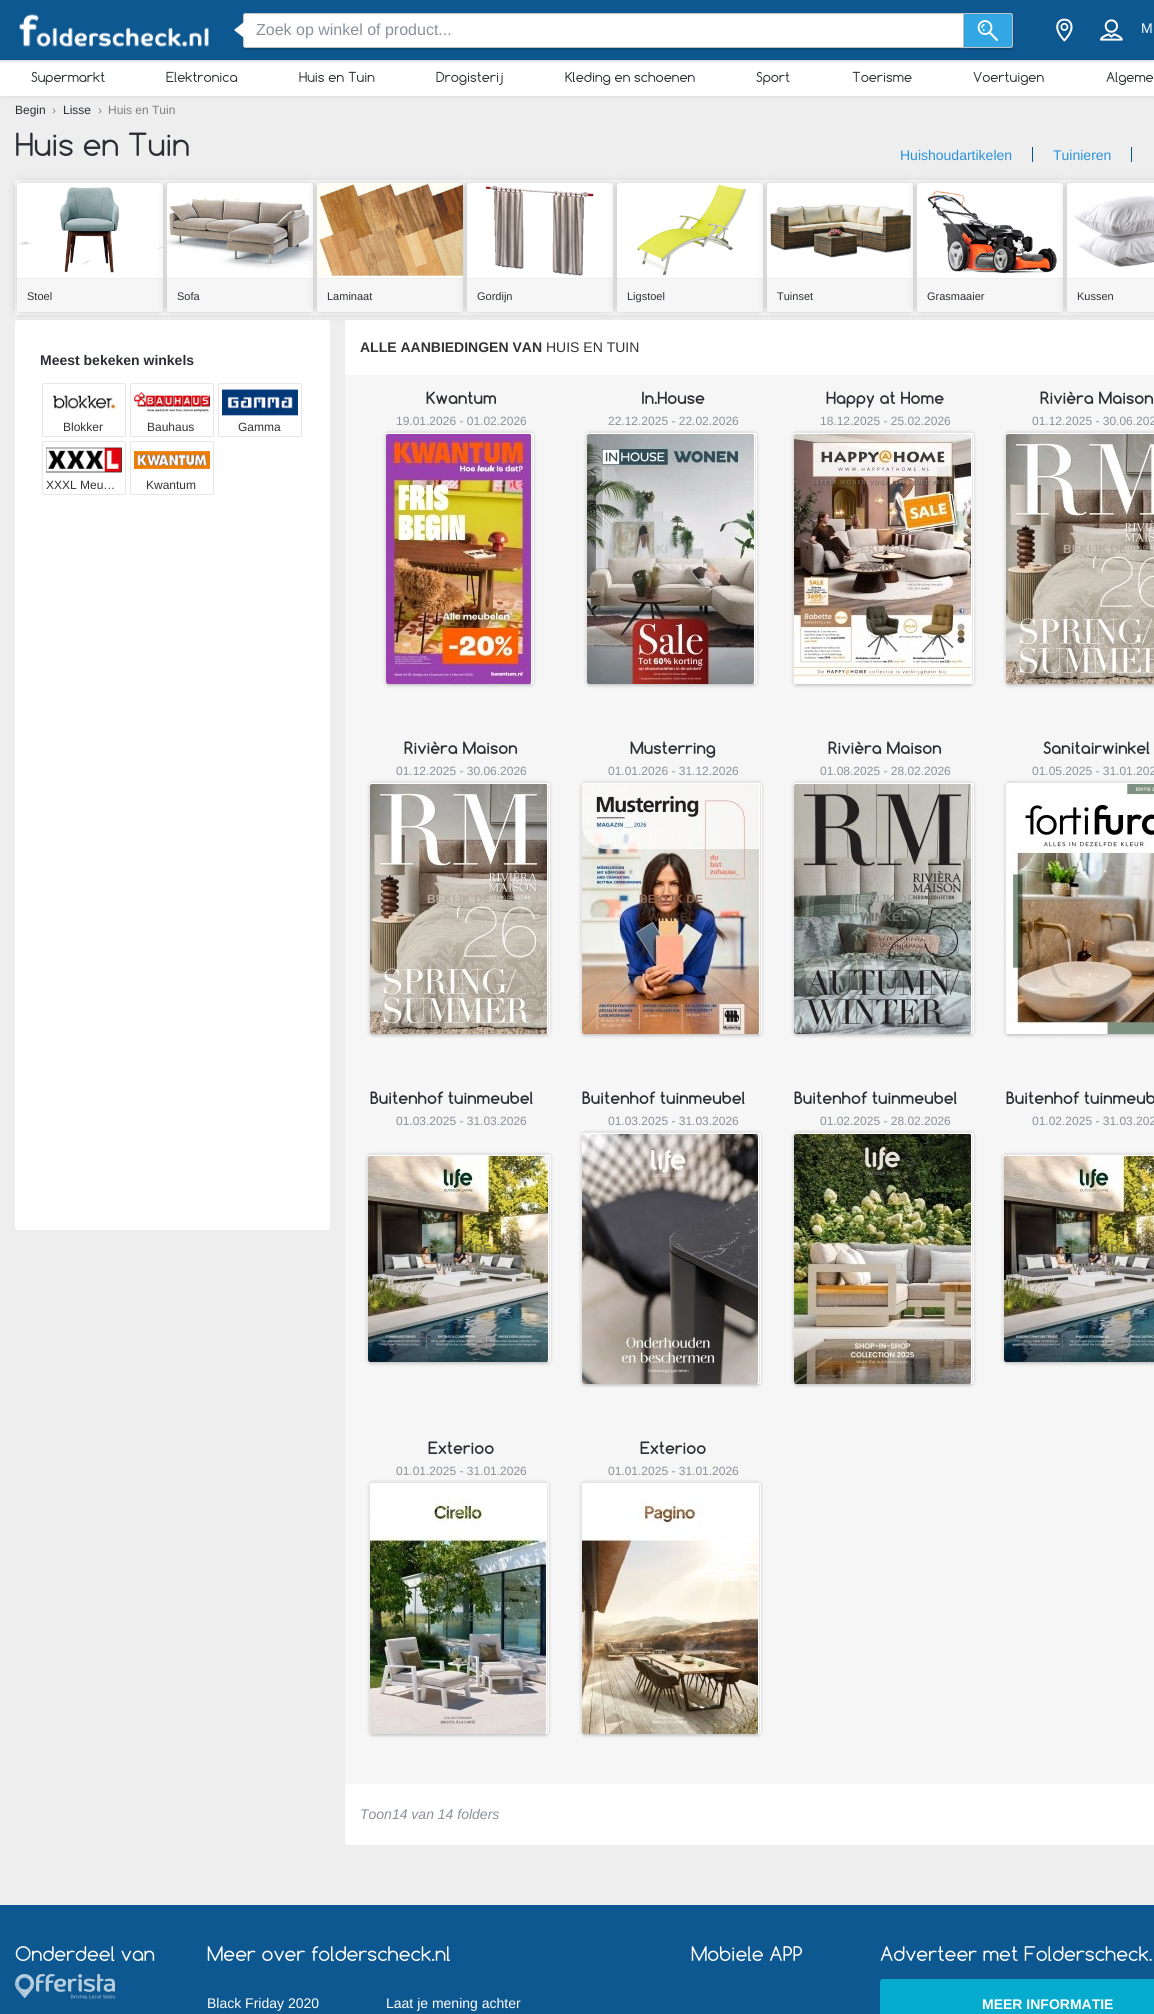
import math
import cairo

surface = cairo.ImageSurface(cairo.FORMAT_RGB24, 1154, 2014)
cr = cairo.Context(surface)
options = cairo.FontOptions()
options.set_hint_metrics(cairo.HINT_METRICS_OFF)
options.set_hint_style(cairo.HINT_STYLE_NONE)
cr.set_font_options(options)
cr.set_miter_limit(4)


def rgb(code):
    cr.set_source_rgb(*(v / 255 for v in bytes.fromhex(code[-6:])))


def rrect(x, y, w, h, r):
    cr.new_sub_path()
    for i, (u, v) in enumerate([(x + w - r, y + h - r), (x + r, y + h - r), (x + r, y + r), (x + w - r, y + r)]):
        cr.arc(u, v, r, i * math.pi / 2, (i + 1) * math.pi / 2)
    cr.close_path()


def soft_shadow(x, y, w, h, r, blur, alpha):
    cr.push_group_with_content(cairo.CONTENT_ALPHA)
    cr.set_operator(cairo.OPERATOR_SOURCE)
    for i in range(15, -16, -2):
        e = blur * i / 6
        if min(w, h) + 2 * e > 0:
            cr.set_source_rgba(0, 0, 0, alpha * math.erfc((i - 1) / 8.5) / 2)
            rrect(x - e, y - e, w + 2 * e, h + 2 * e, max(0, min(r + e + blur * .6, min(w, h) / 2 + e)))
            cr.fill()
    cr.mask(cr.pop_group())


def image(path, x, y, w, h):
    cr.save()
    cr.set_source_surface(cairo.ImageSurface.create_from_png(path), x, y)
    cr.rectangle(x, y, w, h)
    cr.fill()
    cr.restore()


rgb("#eeeeee")
cr.paint()
rgb("#999999")
soft_shadow(0, 61, 1154, 36, 0, 1.5, 0.2)
rgb("#ffffff")
cr.rectangle(0, 60, 1154, 36)
cr.fill()
rgb("#000000")
soft_shadow(0, 0, 1154, 60, 0, 2, 0.28)
rgb("#0e5891")
cr.rectangle(0, 0, 1154, 60)
cr.fill()
image("img/1.png", 19, 14, 190, 33)
rgb("#000000")
soft_shadow(964, 15, 49, 35, 3, 0.5, 0.17)
rgb("#ffffff")
cr.new_path()
cr.move_to(246, 13)
cr.line_to(964, 13)
cr.line_to(964, 48)
cr.line_to(246, 48)
cr.curve_to(244.5, 48, 243, 46.5, 243, 45)
cr.line_to(243, 16)
cr.curve_to(243, 14.5, 244.5, 13, 246, 13)
cr.close_path()
cr.fill()
rgb("#33a7e3")
cr.new_path()
cr.move_to(964, 13)
cr.line_to(1010, 13)
cr.curve_to(1011.5, 13, 1013, 14.5, 1013, 16)
cr.line_to(1013, 45)
cr.curve_to(1013, 46.5, 1011.5, 48, 1010, 48)
cr.line_to(964, 48)
cr.close_path()
cr.fill()
rgb("#c1c1c1")
cr.set_fill_rule(cairo.FILL_RULE_EVEN_ODD)
cr.new_path()
cr.move_to(964, 13)
cr.line_to(1010, 13)
cr.curve_to(1012, 13, 1013, 14, 1013, 16)
cr.line_to(1013, 45)
cr.curve_to(1013, 47, 1012, 48, 1010, 48)
cr.line_to(964, 48)
cr.close_path()
cr.move_to(964, 14)
cr.line_to(1010, 14)
cr.curve_to(1011, 14, 1012, 15, 1012, 16)
cr.line_to(1012, 45)
cr.curve_to(1012, 46, 1011, 47, 1010, 47)
cr.line_to(964, 47)
cr.close_path()
cr.fill()
cr.save()
cr.new_path()
cr.move_to(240, 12)
cr.line_to(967, 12)
cr.line_to(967, 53)
cr.line_to(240, 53)
cr.close_path()
cr.move_to(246, 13)
cr.line_to(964, 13)
cr.line_to(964, 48)
cr.line_to(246, 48)
cr.curve_to(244.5, 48, 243, 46.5, 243, 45)
cr.line_to(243, 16)
cr.curve_to(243, 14.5, 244.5, 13, 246, 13)
cr.close_path()
cr.clip()
rgb("#000000")
soft_shadow(243, 15, 721, 35, 3, 0.5, 0.17)
cr.restore()
cr.new_path()
cr.move_to(246, 13.5)
cr.line_to(963.5, 13.5)
cr.line_to(963.5, 47.5)
cr.line_to(246, 47.5)
cr.curve_to(244.5, 47.5, 243.5, 46.5, 243.5, 45)
cr.line_to(243.5, 16)
cr.curve_to(243.5, 14.5, 244.5, 13.5, 246, 13.5)
cr.close_path()
cr.set_line_width(1)
cr.stroke()
rgb("#ffffff")
cr.set_fill_rule(cairo.FILL_RULE_WINDING)
cr.new_path()
cr.move_to(244, 22)
cr.line_to(244, 38)
cr.line_to(234, 30)
cr.close_path()
cr.fill()
image("img/2.png", 977, 20, 21, 21)
image("img/3.png", 1056, 18, 17, 24)
image("img/4.png", 1100, 19, 23, 22)
rgb("#055787")
cr.rectangle(1032, 147, 1, 15)
cr.fill()
cr.rectangle(1131, 147, 1, 15)
cr.fill()
rgb("#ffffff")
rrect(15, 180, 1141, 135, 2)
cr.fill()
rgb("#000000")
soft_shadow(19, 185, 142, 125, 1, 5, 0.35)
rgb("#ffffff")
rrect(17, 183, 146, 129, 3)
cr.fill()
image("img/5.png", 18, 187, 145, 86)
rgb("#f6f6f6")
cr.new_path()
cr.move_to(17, 278)
cr.line_to(163, 278)
cr.line_to(163, 309)
cr.curve_to(163, 310.5, 161.5, 312, 160, 312)
cr.line_to(20, 312)
cr.curve_to(18.5, 312, 17, 310.5, 17, 309)
cr.close_path()
cr.fill()
rgb("#eeeeee")
cr.rectangle(17, 278, 146, 1)
cr.fill()
rgb("#000000")
soft_shadow(169, 185, 142, 125, 1, 5, 0.35)
rgb("#ffffff")
rrect(167, 183, 146, 129, 3)
cr.fill()
image("img/6.png", 167, 198, 146, 71)
rgb("#f6f6f6")
cr.new_path()
cr.move_to(167, 278)
cr.line_to(313, 278)
cr.line_to(313, 309)
cr.curve_to(313, 310.5, 311.5, 312, 310, 312)
cr.line_to(170, 312)
cr.curve_to(168.5, 312, 167, 310.5, 167, 309)
cr.close_path()
cr.fill()
rgb("#eeeeee")
cr.rectangle(167, 278, 146, 1)
cr.fill()
rgb("#000000")
soft_shadow(319, 185, 142, 125, 1, 5, 0.35)
rgb("#ffffff")
rrect(317, 183, 146, 129, 3)
cr.fill()
image("img/7.png", 317, 183, 146, 93)
rgb("#f6f6f6")
cr.new_path()
cr.move_to(317, 278)
cr.line_to(463, 278)
cr.line_to(463, 309)
cr.curve_to(463, 310.5, 461.5, 312, 460, 312)
cr.line_to(320, 312)
cr.curve_to(318.5, 312, 317, 310.5, 317, 309)
cr.close_path()
cr.fill()
rgb("#eeeeee")
cr.rectangle(317, 278, 146, 1)
cr.fill()
rgb("#000000")
soft_shadow(469, 185, 142, 125, 1, 5, 0.35)
rgb("#ffffff")
rrect(467, 183, 146, 129, 3)
cr.fill()
image("img/8.png", 485, 185, 109, 91)
rgb("#f6f6f6")
cr.new_path()
cr.move_to(467, 278)
cr.line_to(613, 278)
cr.line_to(613, 309)
cr.curve_to(613, 310.5, 611.5, 312, 610, 312)
cr.line_to(470, 312)
cr.curve_to(468.5, 312, 467, 310.5, 467, 309)
cr.close_path()
cr.fill()
rgb("#eeeeee")
cr.rectangle(467, 278, 146, 1)
cr.fill()
rgb("#000000")
soft_shadow(619, 185, 142, 125, 1, 5, 0.35)
rgb("#ffffff")
rrect(617, 183, 146, 129, 3)
cr.fill()
image("img/9.png", 637, 184, 110, 92)
rgb("#f6f6f6")
cr.new_path()
cr.move_to(617, 278)
cr.line_to(763, 278)
cr.line_to(763, 309)
cr.curve_to(763, 310.5, 761.5, 312, 760, 312)
cr.line_to(620, 312)
cr.curve_to(618.5, 312, 617, 310.5, 617, 309)
cr.close_path()
cr.fill()
rgb("#eeeeee")
cr.rectangle(617, 278, 146, 1)
cr.fill()
rgb("#000000")
soft_shadow(769, 185, 142, 125, 1, 5, 0.35)
rgb("#ffffff")
rrect(767, 183, 146, 129, 3)
cr.fill()
image("img/10.png", 770, 204, 141, 54)
rgb("#f6f6f6")
cr.new_path()
cr.move_to(767, 278)
cr.line_to(913, 278)
cr.line_to(913, 309)
cr.curve_to(913, 310.5, 911.5, 312, 910, 312)
cr.line_to(770, 312)
cr.curve_to(768.5, 312, 767, 310.5, 767, 309)
cr.close_path()
cr.fill()
rgb("#eeeeee")
cr.rectangle(767, 278, 146, 1)
cr.fill()
rgb("#000000")
soft_shadow(919, 185, 142, 125, 1, 5, 0.35)
rgb("#ffffff")
rrect(917, 183, 146, 129, 3)
cr.fill()
image("img/11.png", 927, 191, 130, 83)
rgb("#f6f6f6")
cr.new_path()
cr.move_to(917, 278)
cr.line_to(1063, 278)
cr.line_to(1063, 309)
cr.curve_to(1063, 310.5, 1061.5, 312, 1060, 312)
cr.line_to(920, 312)
cr.curve_to(918.5, 312, 917, 310.5, 917, 309)
cr.close_path()
cr.fill()
rgb("#eeeeee")
cr.rectangle(917, 278, 146, 1)
cr.fill()
rgb("#000000")
soft_shadow(1069, 185, 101, 125, 1, 5, 0.35)
rgb("#ffffff")
rrect(1067, 183, 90, 129, 3)
cr.fill()
image("img/12.png", 1074, 196, 80, 71)
rgb("#f6f6f6")
cr.new_path()
cr.move_to(1067, 278)
cr.line_to(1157, 278)
cr.line_to(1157, 309)
cr.curve_to(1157, 310.5, 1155.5, 312, 1154, 312)
cr.line_to(1070, 312)
cr.curve_to(1068.5, 312, 1067, 310.5, 1067, 309)
cr.close_path()
cr.fill()
rgb("#eeeeee")
cr.rectangle(1067, 278, 87, 1)
cr.fill()
rgb("#ffffff")
cr.new_path()
cr.move_to(18, 320)
cr.line_to(327, 320)
cr.curve_to(328.5, 320, 330, 321.5, 330, 323)
cr.line_to(330, 325)
cr.line_to(15, 325)
cr.line_to(15, 323)
cr.curve_to(15, 321.5, 16.5, 320, 18, 320)
cr.close_path()
cr.fill()
cr.new_path()
cr.move_to(15, 325)
cr.line_to(330, 325)
cr.line_to(330, 1227)
cr.curve_to(330, 1228.5, 328.5, 1230, 327, 1230)
cr.line_to(18, 1230)
cr.curve_to(16.5, 1230, 15, 1228.5, 15, 1227)
cr.close_path()
cr.fill()
rrect(42.5, 383.5, 83, 53, 1.5)
rgb("#e8e6e6")
cr.stroke()
image("img/13.png", 53, 394, 65, 19)
rrect(130.5, 383.5, 83, 53, 1.5)
cr.stroke()
image("img/14.png", 134, 392, 76, 20)
rrect(218.5, 383.5, 83, 53, 1.5)
cr.stroke()
image("img/15.png", 222, 389, 76, 27)
rrect(42.5, 441.5, 83, 53, 1.5)
cr.stroke()
image("img/16.png", 46, 447, 76, 26)
rrect(130.5, 441.5, 83, 53, 1.5)
cr.stroke()
image("img/17.png", 134, 451, 76, 18)
rgb("#f6f6f6")
rrect(345, 320, 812, 1525, 3)
cr.fill()
rgb("#ffffff")
rrect(345, 320, 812, 55, 3)
cr.fill()
rgb("#000000")
soft_shadow(386, 433, 147, 252, 3, 2, 0.29)
rgb("#ffffff")
rrect(388, 432, 147, 252, 3)
cr.fill()
rgb("#e4e4e4")
cr.set_fill_rule(cairo.FILL_RULE_EVEN_ODD)
cr.new_path()
cr.move_to(391, 432)
cr.line_to(532, 432)
cr.curve_to(534, 432, 535, 433, 535, 435)
cr.line_to(535, 681)
cr.curve_to(535, 683, 534, 684, 532, 684)
cr.line_to(391, 684)
cr.curve_to(389, 684, 388, 683, 388, 681)
cr.line_to(388, 435)
cr.curve_to(388, 433, 389, 432, 391, 432)
cr.close_path()
cr.move_to(391, 433)
cr.line_to(532, 433)
cr.curve_to(533, 433, 534, 434, 534, 435)
cr.line_to(534, 681)
cr.curve_to(534, 683, 533, 684, 532, 684)
cr.line_to(391, 684)
cr.curve_to(389, 684, 388, 683, 388, 681)
cr.line_to(388, 435)
cr.curve_to(388, 434, 389, 433, 391, 433)
cr.close_path()
cr.fill()
rgb("#ffffff")
rrect(385, 433, 148, 251, 3)
cr.fill()
rgb("#e4e4e4")
cr.rectangle(532, 435, 1, 248)
cr.fill()
cr.rectangle(385, 435, 1, 248)
cr.fill()
image("img/18.png", 386, 434, 145, 250)
rgb("#000000")
soft_shadow(587, 433, 169, 252, 3, 2, 0.29)
rgb("#ffffff")
rrect(589, 432, 169, 252, 3)
cr.fill()
rgb("#e4e4e4")
cr.new_path()
cr.move_to(592, 432)
cr.line_to(755, 432)
cr.curve_to(757, 432, 758, 433, 758, 435)
cr.line_to(758, 681)
cr.curve_to(758, 683, 757, 684, 755, 684)
cr.line_to(592, 684)
cr.curve_to(590, 684, 589, 683, 589, 681)
cr.line_to(589, 435)
cr.curve_to(589, 433, 590, 432, 592, 432)
cr.close_path()
cr.move_to(592, 433)
cr.line_to(755, 433)
cr.curve_to(756, 433, 757, 434, 757, 435)
cr.line_to(757, 681)
cr.curve_to(757, 683, 756, 684, 755, 684)
cr.line_to(592, 684)
cr.curve_to(590, 684, 589, 683, 589, 681)
cr.line_to(589, 435)
cr.curve_to(589, 434, 590, 433, 592, 433)
cr.close_path()
cr.fill()
rgb("#ffffff")
rrect(586, 433, 170, 251, 3)
cr.fill()
rgb("#e4e4e4")
cr.rectangle(755, 435, 1, 248)
cr.fill()
cr.rectangle(586, 435, 1, 248)
cr.fill()
image("img/19.png", 587, 434, 167, 250)
rgb("#000000")
soft_shadow(794, 433, 179, 252, 3, 2, 0.29)
rgb("#ffffff")
rrect(796, 432, 179, 252, 3)
cr.fill()
rgb("#e4e4e4")
cr.new_path()
cr.move_to(799, 432)
cr.line_to(972, 432)
cr.curve_to(974, 432, 975, 433, 975, 435)
cr.line_to(975, 681)
cr.curve_to(975, 683, 974, 684, 972, 684)
cr.line_to(799, 684)
cr.curve_to(797, 684, 796, 683, 796, 681)
cr.line_to(796, 435)
cr.curve_to(796, 433, 797, 432, 799, 432)
cr.close_path()
cr.move_to(799, 433)
cr.line_to(972, 433)
cr.curve_to(973, 433, 974, 434, 974, 435)
cr.line_to(974, 681)
cr.curve_to(974, 683, 973, 684, 972, 684)
cr.line_to(799, 684)
cr.curve_to(797, 684, 796, 683, 796, 681)
cr.line_to(796, 435)
cr.curve_to(796, 434, 797, 433, 799, 433)
cr.close_path()
cr.fill()
rgb("#ffffff")
rrect(793, 433, 180, 251, 3)
cr.fill()
rgb("#e4e4e4")
cr.rectangle(972, 435, 1, 248)
cr.fill()
cr.rectangle(793, 435, 1, 248)
cr.fill()
image("img/20.png", 794, 434, 177, 250)
rgb("#000000")
soft_shadow(1006, 433, 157, 252, 3, 2, 0.29)
rgb("#e4e4e4")
cr.new_path()
cr.move_to(1011, 432)
cr.line_to(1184, 432)
cr.curve_to(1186, 432, 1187, 433, 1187, 435)
cr.line_to(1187, 681)
cr.curve_to(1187, 683, 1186, 684, 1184, 684)
cr.line_to(1011, 684)
cr.curve_to(1009, 684, 1008, 683, 1008, 681)
cr.line_to(1008, 435)
cr.curve_to(1008, 433, 1009, 432, 1011, 432)
cr.close_path()
cr.move_to(1011, 433)
cr.line_to(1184, 433)
cr.curve_to(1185, 433, 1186, 434, 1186, 435)
cr.line_to(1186, 681)
cr.curve_to(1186, 683, 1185, 684, 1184, 684)
cr.line_to(1011, 684)
cr.curve_to(1009, 684, 1008, 683, 1008, 681)
cr.line_to(1008, 435)
cr.curve_to(1008, 434, 1009, 433, 1011, 433)
cr.close_path()
cr.fill()
rgb("#ffffff")
rrect(1005, 433, 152, 251, 3)
cr.fill()
rgb("#e4e4e4")
cr.rectangle(1005, 435, 1, 248)
cr.fill()
image("img/21.png", 1006, 434, 148, 250)
rgb("#000000")
soft_shadow(370, 783, 179, 252, 3, 2, 0.29)
rgb("#ffffff")
rrect(372, 782, 179, 252, 3)
cr.fill()
rgb("#e4e4e4")
cr.new_path()
cr.move_to(375, 782)
cr.line_to(548, 782)
cr.curve_to(550, 782, 551, 783, 551, 785)
cr.line_to(551, 1031)
cr.curve_to(551, 1033, 550, 1034, 548, 1034)
cr.line_to(375, 1034)
cr.curve_to(373, 1034, 372, 1033, 372, 1031)
cr.line_to(372, 785)
cr.curve_to(372, 783, 373, 782, 375, 782)
cr.close_path()
cr.move_to(375, 783)
cr.line_to(548, 783)
cr.curve_to(549, 783, 550, 784, 550, 785)
cr.line_to(550, 1031)
cr.curve_to(550, 1033, 549, 1034, 548, 1034)
cr.line_to(375, 1034)
cr.curve_to(373, 1034, 372, 1033, 372, 1031)
cr.line_to(372, 785)
cr.curve_to(372, 784, 373, 783, 375, 783)
cr.close_path()
cr.fill()
rgb("#ffffff")
rrect(369, 783, 180, 251, 3)
cr.fill()
rgb("#e4e4e4")
cr.rectangle(548, 785, 1, 248)
cr.fill()
cr.rectangle(369, 785, 1, 248)
cr.fill()
image("img/22.png", 370, 784, 177, 250)
rgb("#000000")
soft_shadow(582, 783, 179, 252, 3, 2, 0.29)
rgb("#ffffff")
rrect(584, 782, 179, 252, 3)
cr.fill()
rgb("#e4e4e4")
cr.new_path()
cr.move_to(587, 782)
cr.line_to(760, 782)
cr.curve_to(762, 782, 763, 783, 763, 785)
cr.line_to(763, 1031)
cr.curve_to(763, 1033, 762, 1034, 760, 1034)
cr.line_to(587, 1034)
cr.curve_to(585, 1034, 584, 1033, 584, 1031)
cr.line_to(584, 785)
cr.curve_to(584, 783, 585, 782, 587, 782)
cr.close_path()
cr.move_to(587, 783)
cr.line_to(760, 783)
cr.curve_to(761, 783, 762, 784, 762, 785)
cr.line_to(762, 1031)
cr.curve_to(762, 1033, 761, 1034, 760, 1034)
cr.line_to(587, 1034)
cr.curve_to(585, 1034, 584, 1033, 584, 1031)
cr.line_to(584, 785)
cr.curve_to(584, 784, 585, 783, 587, 783)
cr.close_path()
cr.fill()
rgb("#ffffff")
rrect(581, 783, 180, 251, 3)
cr.fill()
rgb("#e4e4e4")
cr.rectangle(760, 785, 1, 248)
cr.fill()
cr.rectangle(581, 785, 1, 248)
cr.fill()
image("img/23.png", 582, 784, 177, 250)
rgb("#000000")
soft_shadow(794, 783, 179, 252, 3, 2, 0.29)
rgb("#ffffff")
rrect(796, 782, 179, 252, 3)
cr.fill()
rgb("#e4e4e4")
cr.new_path()
cr.move_to(799, 782)
cr.line_to(972, 782)
cr.curve_to(974, 782, 975, 783, 975, 785)
cr.line_to(975, 1031)
cr.curve_to(975, 1033, 974, 1034, 972, 1034)
cr.line_to(799, 1034)
cr.curve_to(797, 1034, 796, 1033, 796, 1031)
cr.line_to(796, 785)
cr.curve_to(796, 783, 797, 782, 799, 782)
cr.close_path()
cr.move_to(799, 783)
cr.line_to(972, 783)
cr.curve_to(973, 783, 974, 784, 974, 785)
cr.line_to(974, 1031)
cr.curve_to(974, 1033, 973, 1034, 972, 1034)
cr.line_to(799, 1034)
cr.curve_to(797, 1034, 796, 1033, 796, 1031)
cr.line_to(796, 785)
cr.curve_to(796, 784, 797, 783, 799, 783)
cr.close_path()
cr.fill()
rgb("#ffffff")
rrect(793, 783, 180, 251, 3)
cr.fill()
rgb("#e4e4e4")
cr.rectangle(972, 785, 1, 248)
cr.fill()
cr.rectangle(793, 785, 1, 248)
cr.fill()
image("img/24.png", 794, 784, 177, 250)
rgb("#000000")
soft_shadow(1006, 783, 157, 252, 3, 2, 0.29)
rgb("#e4e4e4")
cr.new_path()
cr.move_to(1011, 782)
cr.line_to(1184, 782)
cr.curve_to(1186, 782, 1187, 783, 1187, 785)
cr.line_to(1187, 1031)
cr.curve_to(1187, 1033, 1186, 1034, 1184, 1034)
cr.line_to(1011, 1034)
cr.curve_to(1009, 1034, 1008, 1033, 1008, 1031)
cr.line_to(1008, 785)
cr.curve_to(1008, 783, 1009, 782, 1011, 782)
cr.close_path()
cr.move_to(1011, 783)
cr.line_to(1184, 783)
cr.curve_to(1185, 783, 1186, 784, 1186, 785)
cr.line_to(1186, 1031)
cr.curve_to(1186, 1033, 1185, 1034, 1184, 1034)
cr.line_to(1011, 1034)
cr.curve_to(1009, 1034, 1008, 1033, 1008, 1031)
cr.line_to(1008, 785)
cr.curve_to(1008, 784, 1009, 783, 1011, 783)
cr.close_path()
cr.fill()
rgb("#ffffff")
rrect(1005, 783, 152, 251, 3)
cr.fill()
rgb("#e4e4e4")
cr.rectangle(1005, 785, 1, 248)
cr.fill()
image("img/25.png", 1006, 784, 148, 250)
rgb("#000000")
soft_shadow(368, 1155, 182, 208, 3, 2, 0.29)
rgb("#ffffff")
rrect(370, 1154, 182, 208, 3)
cr.fill()
rgb("#e4e4e4")
cr.new_path()
cr.move_to(373, 1154)
cr.line_to(549, 1154)
cr.curve_to(551, 1154, 552, 1155, 552, 1157)
cr.line_to(552, 1359)
cr.curve_to(552, 1361, 551, 1362, 549, 1362)
cr.line_to(373, 1362)
cr.curve_to(371, 1362, 370, 1361, 370, 1359)
cr.line_to(370, 1157)
cr.curve_to(370, 1155, 371, 1154, 373, 1154)
cr.close_path()
cr.move_to(373, 1155)
cr.line_to(549, 1155)
cr.curve_to(550, 1155, 551, 1156, 551, 1157)
cr.line_to(551, 1359)
cr.curve_to(551, 1361, 550, 1362, 549, 1362)
cr.line_to(373, 1362)
cr.curve_to(371, 1362, 370, 1361, 370, 1359)
cr.line_to(370, 1157)
cr.curve_to(370, 1156, 371, 1155, 373, 1155)
cr.close_path()
cr.fill()
rgb("#ffffff")
rrect(367, 1155, 183, 207, 3)
cr.fill()
rgb("#e4e4e4")
cr.rectangle(549, 1157, 1, 204)
cr.fill()
cr.rectangle(367, 1157, 1, 204)
cr.fill()
image("img/26.png", 368, 1156, 180, 206)
rgb("#000000")
soft_shadow(582, 1133, 178, 252, 3, 2, 0.29)
rgb("#ffffff")
rrect(584, 1132, 178, 252, 3)
cr.fill()
rgb("#e4e4e4")
cr.new_path()
cr.move_to(587, 1132)
cr.line_to(759, 1132)
cr.curve_to(761, 1132, 762, 1133, 762, 1135)
cr.line_to(762, 1381)
cr.curve_to(762, 1383, 761, 1384, 759, 1384)
cr.line_to(587, 1384)
cr.curve_to(585, 1384, 584, 1383, 584, 1381)
cr.line_to(584, 1135)
cr.curve_to(584, 1133, 585, 1132, 587, 1132)
cr.close_path()
cr.move_to(587, 1133)
cr.line_to(759, 1133)
cr.curve_to(760, 1133, 761, 1134, 761, 1135)
cr.line_to(761, 1381)
cr.curve_to(761, 1383, 760, 1384, 759, 1384)
cr.line_to(587, 1384)
cr.curve_to(585, 1384, 584, 1383, 584, 1381)
cr.line_to(584, 1135)
cr.curve_to(584, 1134, 585, 1133, 587, 1133)
cr.close_path()
cr.fill()
rgb("#ffffff")
rrect(581, 1133, 179, 251, 3)
cr.fill()
rgb("#e4e4e4")
cr.rectangle(759, 1135, 1, 248)
cr.fill()
cr.rectangle(581, 1135, 1, 248)
cr.fill()
image("img/27.png", 582, 1134, 176, 250)
rgb("#000000")
soft_shadow(794, 1133, 179, 252, 3, 2, 0.29)
rgb("#ffffff")
rrect(796, 1132, 179, 252, 3)
cr.fill()
rgb("#e4e4e4")
cr.new_path()
cr.move_to(799, 1132)
cr.line_to(972, 1132)
cr.curve_to(974, 1132, 975, 1133, 975, 1135)
cr.line_to(975, 1381)
cr.curve_to(975, 1383, 974, 1384, 972, 1384)
cr.line_to(799, 1384)
cr.curve_to(797, 1384, 796, 1383, 796, 1381)
cr.line_to(796, 1135)
cr.curve_to(796, 1133, 797, 1132, 799, 1132)
cr.close_path()
cr.move_to(799, 1133)
cr.line_to(972, 1133)
cr.curve_to(973, 1133, 974, 1134, 974, 1135)
cr.line_to(974, 1381)
cr.curve_to(974, 1383, 973, 1384, 972, 1384)
cr.line_to(799, 1384)
cr.curve_to(797, 1384, 796, 1383, 796, 1381)
cr.line_to(796, 1135)
cr.curve_to(796, 1134, 797, 1133, 799, 1133)
cr.close_path()
cr.fill()
rgb("#ffffff")
rrect(793, 1133, 180, 251, 3)
cr.fill()
rgb("#e4e4e4")
cr.rectangle(972, 1135, 1, 248)
cr.fill()
cr.rectangle(793, 1135, 1, 248)
cr.fill()
image("img/28.png", 794, 1134, 177, 250)
rgb("#000000")
soft_shadow(1004, 1155, 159, 208, 3, 2, 0.29)
rgb("#e4e4e4")
cr.new_path()
cr.move_to(1009, 1154)
cr.line_to(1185, 1154)
cr.curve_to(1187, 1154, 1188, 1155, 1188, 1157)
cr.line_to(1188, 1359)
cr.curve_to(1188, 1361, 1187, 1362, 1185, 1362)
cr.line_to(1009, 1362)
cr.curve_to(1007, 1362, 1006, 1361, 1006, 1359)
cr.line_to(1006, 1157)
cr.curve_to(1006, 1155, 1007, 1154, 1009, 1154)
cr.close_path()
cr.move_to(1009, 1155)
cr.line_to(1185, 1155)
cr.curve_to(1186, 1155, 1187, 1156, 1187, 1157)
cr.line_to(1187, 1359)
cr.curve_to(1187, 1361, 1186, 1362, 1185, 1362)
cr.line_to(1009, 1362)
cr.curve_to(1007, 1362, 1006, 1361, 1006, 1359)
cr.line_to(1006, 1157)
cr.curve_to(1006, 1156, 1007, 1155, 1009, 1155)
cr.close_path()
cr.fill()
rgb("#ffffff")
rrect(1003, 1155, 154, 207, 3)
cr.fill()
rgb("#e4e4e4")
cr.rectangle(1003, 1157, 1, 204)
cr.fill()
image("img/29.png", 1004, 1156, 150, 206)
rgb("#000000")
soft_shadow(370, 1483, 178, 252, 3, 2, 0.29)
rgb("#ffffff")
rrect(372, 1482, 178, 252, 3)
cr.fill()
rgb("#e4e4e4")
cr.new_path()
cr.move_to(375, 1482)
cr.line_to(547, 1482)
cr.curve_to(549, 1482, 550, 1483, 550, 1485)
cr.line_to(550, 1731)
cr.curve_to(550, 1733, 549, 1734, 547, 1734)
cr.line_to(375, 1734)
cr.curve_to(373, 1734, 372, 1733, 372, 1731)
cr.line_to(372, 1485)
cr.curve_to(372, 1483, 373, 1482, 375, 1482)
cr.close_path()
cr.move_to(375, 1483)
cr.line_to(547, 1483)
cr.curve_to(548, 1483, 549, 1484, 549, 1485)
cr.line_to(549, 1731)
cr.curve_to(549, 1733, 548, 1734, 547, 1734)
cr.line_to(375, 1734)
cr.curve_to(373, 1734, 372, 1733, 372, 1731)
cr.line_to(372, 1485)
cr.curve_to(372, 1484, 373, 1483, 375, 1483)
cr.close_path()
cr.fill()
rgb("#ffffff")
rrect(369, 1483, 179, 251, 3)
cr.fill()
rgb("#e4e4e4")
cr.rectangle(547, 1485, 1, 248)
cr.fill()
cr.rectangle(369, 1485, 1, 248)
cr.fill()
image("img/30.png", 370, 1499, 176, 235)
rgb("#000000")
soft_shadow(582, 1483, 178, 252, 3, 2, 0.29)
rgb("#ffffff")
rrect(584, 1482, 178, 252, 3)
cr.fill()
rgb("#e4e4e4")
cr.new_path()
cr.move_to(587, 1482)
cr.line_to(759, 1482)
cr.curve_to(761, 1482, 762, 1483, 762, 1485)
cr.line_to(762, 1731)
cr.curve_to(762, 1733, 761, 1734, 759, 1734)
cr.line_to(587, 1734)
cr.curve_to(585, 1734, 584, 1733, 584, 1731)
cr.line_to(584, 1485)
cr.curve_to(584, 1483, 585, 1482, 587, 1482)
cr.close_path()
cr.move_to(587, 1483)
cr.line_to(759, 1483)
cr.curve_to(760, 1483, 761, 1484, 761, 1485)
cr.line_to(761, 1731)
cr.curve_to(761, 1733, 760, 1734, 759, 1734)
cr.line_to(587, 1734)
cr.curve_to(585, 1734, 584, 1733, 584, 1731)
cr.line_to(584, 1485)
cr.curve_to(584, 1484, 585, 1483, 587, 1483)
cr.close_path()
cr.fill()
rgb("#ffffff")
rrect(581, 1483, 179, 251, 3)
cr.fill()
rgb("#e4e4e4")
cr.rectangle(759, 1485, 1, 248)
cr.fill()
cr.rectangle(581, 1485, 1, 248)
cr.fill()
image("img/31.png", 582, 1500, 176, 234)
rgb("#ffffff")
rrect(345, 1784, 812, 61, 3)
cr.fill()
rgb("#0e5891")
cr.rectangle(0, 1905, 1154, 109)
cr.fill()
image("img/32.png", 15, 1974, 100, 25)
rgb("#06abce")
cr.new_path()
cr.move_to(883, 1979)
cr.line_to(1154, 1979)
cr.line_to(1154, 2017)
cr.line_to(883, 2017)
cr.curve_to(881.5, 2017, 880, 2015.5, 880, 2014)
cr.line_to(880, 1982)
cr.curve_to(880, 1980.5, 881.5, 1979, 883, 1979)
cr.close_path()
cr.fill()
cr.select_font_face("Liberation Sans")
cr.set_font_size(16)
rgb("#89919c")
cr.move_to(256, 35)
cr.show_text("Zoek op winkel of product...")
cr.set_font_size(14)
rgb("#ffffff")
cr.move_to(1141, 33)
cr.show_text("M")
cr.select_font_face("Comfortaa")
cr.set_font_size(13)
rgb("#2b2f35")
for x, y, s in [
    (31, 82, "Supermarkt"),
    (166, 82, "Elektronica"),
    (299, 82, "Huis en Tuin"),
    (436, 82, "Drogisterij"),
    (565, 82, "Kleding en schoenen"),
    (756, 82, "Sport"),
    (852, 82, "Toerisme"),
    (973, 82, "Voertuigen"),
    (1106, 82, "Algeme"),
]:
    cr.move_to(x, y)
    cr.show_text(s)
cr.select_font_face("Liberation Sans")
cr.set_font_size(12)
cr.move_to(15, 114)
cr.show_text("Begin")
rgb("#808080")
cr.move_to(52, 114)
cr.show_text("›")
rgb("#2b2f35")
cr.move_to(63, 114)
cr.show_text("Lisse")
rgb("#808080")
cr.move_to(98, 114)
cr.show_text("›")
cr.move_to(108, 114)
cr.show_text("Huis en Tuin")
cr.select_font_face("Comfortaa")
cr.set_font_size(30)
rgb("#2b2f35")
cr.move_to(15, 156)
cr.show_text("Huis en Tuin")
cr.select_font_face("Liberation Sans")
cr.set_font_size(14)
rgb("#2a93dc")
cr.move_to(900, 160)
cr.show_text("Huishoudartikelen")
cr.move_to(1053, 160)
cr.show_text("Tuinieren")
cr.set_font_size(11)
rgb("#2b2f35")
for x, y, s in [
    (27, 300, "Stoel"),
    (177, 300, "Sofa"),
    (327, 300, "Laminaat"),
    (477, 300, "Gordijn"),
    (627, 300, "Ligstoel"),
    (777, 300, "Tuinset"),
    (927, 300, "Grasmaaier"),
    (1077, 300, "Kussen"),
]:
    cr.move_to(x, y)
    cr.show_text(s)
cr.select_font_face("Liberation Sans", cairo.FONT_SLANT_NORMAL, cairo.FONT_WEIGHT_BOLD)
cr.set_font_size(14)
cr.move_to(40, 365)
cr.show_text("Meest bekeken winkels")
cr.select_font_face("Liberation Sans")
cr.set_font_size(12)
rgb("#333333")
for x, y, s in [
    (63, 431, "Blokker"),
    (147, 431, "Bauhaus"),
    (238, 431, "Gamma"),
    (46, 489, "XXXL Meu…"),
    (146, 489, "Kwantum"),
]:
    cr.move_to(x, y)
    cr.show_text(s)
cr.select_font_face("Liberation Sans", cairo.FONT_SLANT_NORMAL, cairo.FONT_WEIGHT_BOLD)
cr.set_font_size(14)
cr.move_to(360, 352)
cr.show_text("ALLE AANBIEDINGEN VAN")
cr.select_font_face("Liberation Sans")
cr.move_to(546, 352)
cr.show_text("HUIS EN TUIN")
cr.select_font_face("Comfortaa", cairo.FONT_SLANT_NORMAL, cairo.FONT_WEIGHT_BOLD)
cr.set_font_size(16)
rgb("#2b2f35")
cr.move_to(426, 404)
cr.show_text("Kwantum")
cr.select_font_face("Liberation Sans")
cr.set_font_size(12)
rgb("#89919c")
cr.move_to(396, 425)
cr.show_text("19.01.2026 - 01.02.2026")
cr.select_font_face("Liberation Sans", cairo.FONT_SLANT_NORMAL, cairo.FONT_WEIGHT_BOLD)
rgb("#9a5e3e")
cr.move_to(483, 553)
cr.show_text("E")
rgb("#65391f")
cr.move_to(436, 571)
cr.show_text("WINKEL")
cr.select_font_face("Comfortaa", cairo.FONT_SLANT_NORMAL, cairo.FONT_WEIGHT_BOLD)
cr.set_font_size(16)
rgb("#2b2f35")
cr.move_to(641, 404)
cr.show_text("In.House")
cr.select_font_face("Liberation Sans")
cr.set_font_size(12)
rgb("#89919c")
cr.move_to(608, 425)
cr.show_text("22.12.2025 - 22.02.2026")
cr.select_font_face("Liberation Sans", cairo.FONT_SLANT_NORMAL, cairo.FONT_WEIGHT_BOLD)
rgb("#c1c3c1")
cr.move_to(656, 553)
cr.show_text("KI")
cr.select_font_face("Comfortaa", cairo.FONT_SLANT_NORMAL, cairo.FONT_WEIGHT_BOLD)
cr.set_font_size(16)
rgb("#2b2f35")
cr.move_to(826, 404)
cr.show_text("Happy at Home")
cr.select_font_face("Liberation Sans")
cr.set_font_size(12)
rgb("#89919c")
cr.move_to(820, 425)
cr.show_text("18.12.2025 - 25.02.2026")
cr.select_font_face("Liberation Sans", cairo.FONT_SLANT_NORMAL, cairo.FONT_WEIGHT_BOLD)
rgb("#c2b4ab")
cr.move_to(851, 553)
cr.show_text("BEKIJK DE")
rgb("#8a7a71")
cr.move_to(860, 571)
cr.show_text("WINKEL")
cr.select_font_face("Comfortaa", cairo.FONT_SLANT_NORMAL, cairo.FONT_WEIGHT_BOLD)
cr.set_font_size(16)
rgb("#2b2f35")
cr.move_to(1040, 404)
cr.show_text("Rivièra Maison")
cr.select_font_face("Liberation Sans")
cr.set_font_size(12)
rgb("#89919c")
cr.move_to(1032, 425)
cr.show_text("01.12.2025 - 30.06.202")
cr.select_font_face("Liberation Sans", cairo.FONT_SLANT_NORMAL, cairo.FONT_WEIGHT_BOLD)
rgb("#b6ada1")
cr.move_to(1063, 553)
cr.show_text("BEKIJK DE")
cr.select_font_face("Comfortaa", cairo.FONT_SLANT_NORMAL, cairo.FONT_WEIGHT_BOLD)
cr.set_font_size(16)
rgb("#2b2f35")
cr.move_to(404, 754)
cr.show_text("Rivièra Maison")
cr.select_font_face("Liberation Sans")
cr.set_font_size(12)
rgb("#89919c")
cr.move_to(396, 775)
cr.show_text("01.12.2025 - 30.06.2026")
cr.select_font_face("Liberation Sans", cairo.FONT_SLANT_NORMAL, cairo.FONT_WEIGHT_BOLD)
rgb("#b6ada1")
cr.move_to(427, 903)
cr.show_text("BEKIJK DE")
cr.select_font_face("Comfortaa", cairo.FONT_SLANT_NORMAL, cairo.FONT_WEIGHT_BOLD)
cr.set_font_size(16)
rgb("#2b2f35")
cr.move_to(630, 754)
cr.show_text("Musterring")
cr.select_font_face("Liberation Sans")
cr.set_font_size(12)
rgb("#89919c")
cr.move_to(608, 775)
cr.show_text("01.01.2026 - 31.12.2026")
cr.select_font_face("Liberation Sans", cairo.FONT_SLANT_NORMAL, cairo.FONT_WEIGHT_BOLD)
rgb("#8a6451")
cr.move_to(639, 903)
cr.show_text("BEKIJK DE")
rgb("#4c3224")
cr.move_to(648, 921)
cr.show_text("WINKEL")
cr.select_font_face("Comfortaa", cairo.FONT_SLANT_NORMAL, cairo.FONT_WEIGHT_BOLD)
cr.set_font_size(16)
rgb("#2b2f35")
cr.move_to(828, 754)
cr.show_text("Rivièra Maison")
cr.select_font_face("Liberation Sans")
cr.set_font_size(12)
rgb("#89919c")
cr.move_to(820, 775)
cr.show_text("01.08.2025 - 28.02.2026")
cr.select_font_face("Liberation Sans", cairo.FONT_SLANT_NORMAL, cairo.FONT_WEIGHT_BOLD)
rgb("#9b9d97")
cr.move_to(851, 903)
cr.show_text("BEKIJK DE")
rgb("#6c6f68")
cr.move_to(860, 921)
cr.show_text("WINKEL")
cr.select_font_face("Comfortaa", cairo.FONT_SLANT_NORMAL, cairo.FONT_WEIGHT_BOLD)
cr.set_font_size(16)
rgb("#2b2f35")
cr.move_to(1043, 754)
cr.show_text("Sanitairwinkel")
cr.select_font_face("Liberation Sans")
cr.set_font_size(12)
rgb("#89919c")
cr.move_to(1032, 775)
cr.show_text("01.05.2025 - 31.01.202")
cr.select_font_face("Comfortaa", cairo.FONT_SLANT_NORMAL, cairo.FONT_WEIGHT_BOLD)
cr.set_font_size(16)
rgb("#2b2f35")
cr.move_to(370, 1104)
cr.show_text("Buitenhof tuinmeubel")
cr.set_source_rgba(0.965, 0.965, 0.965, 0.6)
cr.rectangle(532, 1102, 1, 6)
cr.fill()
cr.select_font_face("Liberation Sans")
cr.set_font_size(12)
rgb("#89919c")
cr.move_to(396, 1125)
cr.show_text("01.03.2025 - 31.03.2026")
cr.select_font_face("Liberation Sans", cairo.FONT_SLANT_NORMAL, cairo.FONT_WEIGHT_BOLD)
rgb("#707347")
cr.move_to(427, 1253)
cr.show_text("BEKIJK DE")
rgb("#958f89")
cr.move_to(436, 1271)
cr.show_text("WINKEL")
cr.select_font_face("Comfortaa", cairo.FONT_SLANT_NORMAL, cairo.FONT_WEIGHT_BOLD)
cr.set_font_size(16)
rgb("#2b2f35")
cr.move_to(582, 1104)
cr.show_text("Buitenhof tuinmeubel")
cr.set_source_rgba(0.965, 0.965, 0.965, 0.6)
cr.rectangle(744, 1102, 1, 6)
cr.fill()
cr.select_font_face("Liberation Sans")
cr.set_font_size(12)
rgb("#89919c")
cr.move_to(608, 1125)
cr.show_text("01.03.2025 - 31.03.2026")
cr.select_font_face("Comfortaa", cairo.FONT_SLANT_NORMAL, cairo.FONT_WEIGHT_BOLD)
cr.set_font_size(16)
rgb("#2b2f35")
cr.move_to(794, 1104)
cr.show_text("Buitenhof tuinmeubel")
cr.set_source_rgba(0.965, 0.965, 0.965, 0.6)
cr.rectangle(956, 1102, 1, 6)
cr.fill()
cr.select_font_face("Liberation Sans")
cr.set_font_size(12)
rgb("#89919c")
cr.move_to(820, 1125)
cr.show_text("01.02.2025 - 28.02.2026")
cr.select_font_face("Liberation Sans", cairo.FONT_SLANT_NORMAL, cairo.FONT_WEIGHT_BOLD)
rgb("#cac1b5")
cr.move_to(900, 1271)
cr.show_text("L")
cr.select_font_face("Comfortaa", cairo.FONT_SLANT_NORMAL, cairo.FONT_WEIGHT_BOLD)
cr.set_font_size(16)
rgb("#2b2f35")
cr.move_to(1006, 1104)
cr.show_text("Buitenhof tuinmeub")
cr.select_font_face("Liberation Sans")
cr.set_font_size(12)
rgb("#89919c")
cr.move_to(1032, 1125)
cr.show_text("01.02.2025 - 31.03.202")
cr.select_font_face("Liberation Sans", cairo.FONT_SLANT_NORMAL, cairo.FONT_WEIGHT_BOLD)
rgb("#707347")
cr.move_to(1063, 1253)
cr.show_text("BEKIJK DE")
rgb("#958f89")
cr.move_to(1072, 1271)
cr.show_text("WINKEL")
cr.select_font_face("Comfortaa", cairo.FONT_SLANT_NORMAL, cairo.FONT_WEIGHT_BOLD)
cr.set_font_size(16)
rgb("#2b2f35")
cr.move_to(428, 1454)
cr.show_text("Exterioo")
cr.select_font_face("Liberation Sans")
cr.set_font_size(12)
rgb("#89919c")
cr.move_to(396, 1475)
cr.show_text("01.01.2025 - 31.01.2026")
cr.select_font_face("Liberation Sans", cairo.FONT_SLANT_NORMAL, cairo.FONT_WEIGHT_BOLD)
rgb("#4e6452")
cr.move_to(436, 1621)
cr.show_text("WINKEL")
cr.select_font_face("Comfortaa", cairo.FONT_SLANT_NORMAL, cairo.FONT_WEIGHT_BOLD)
cr.set_font_size(16)
rgb("#2b2f35")
cr.move_to(640, 1454)
cr.show_text("Exterioo")
cr.select_font_face("Liberation Sans")
cr.set_font_size(12)
rgb("#89919c")
cr.move_to(608, 1475)
cr.show_text("01.01.2025 - 31.01.2026")
cr.select_font_face("Liberation Sans", cairo.FONT_SLANT_ITALIC)
cr.set_font_size(14)
cr.move_to(360, 1819)
cr.show_text("Toon14 van 14 folders")
cr.select_font_face("Comfortaa")
cr.set_font_size(19)
rgb("#ffffff")
cr.move_to(15, 1961)
cr.show_text("Onderdeel van")
cr.move_to(207, 1961)
cr.show_text("Meer over folderscheck.nl")
cr.select_font_face("Liberation Sans")
cr.set_font_size(14)
cr.move_to(207, 2008)
cr.show_text("Black Friday 2020")
cr.move_to(386, 2008)
cr.show_text("Laat je mening achter")
cr.select_font_face("Comfortaa")
cr.set_font_size(19)
cr.move_to(691, 1961)
cr.show_text("Mobiele APP")
cr.move_to(880, 1961)
cr.show_text("Adverteer met Folderscheck.")
cr.select_font_face("Liberation Sans", cairo.FONT_SLANT_NORMAL, cairo.FONT_WEIGHT_BOLD)
cr.set_font_size(14)
cr.move_to(982, 2009)
cr.show_text("MEER INFORMATIE")
surface.write_to_png("page.png")
